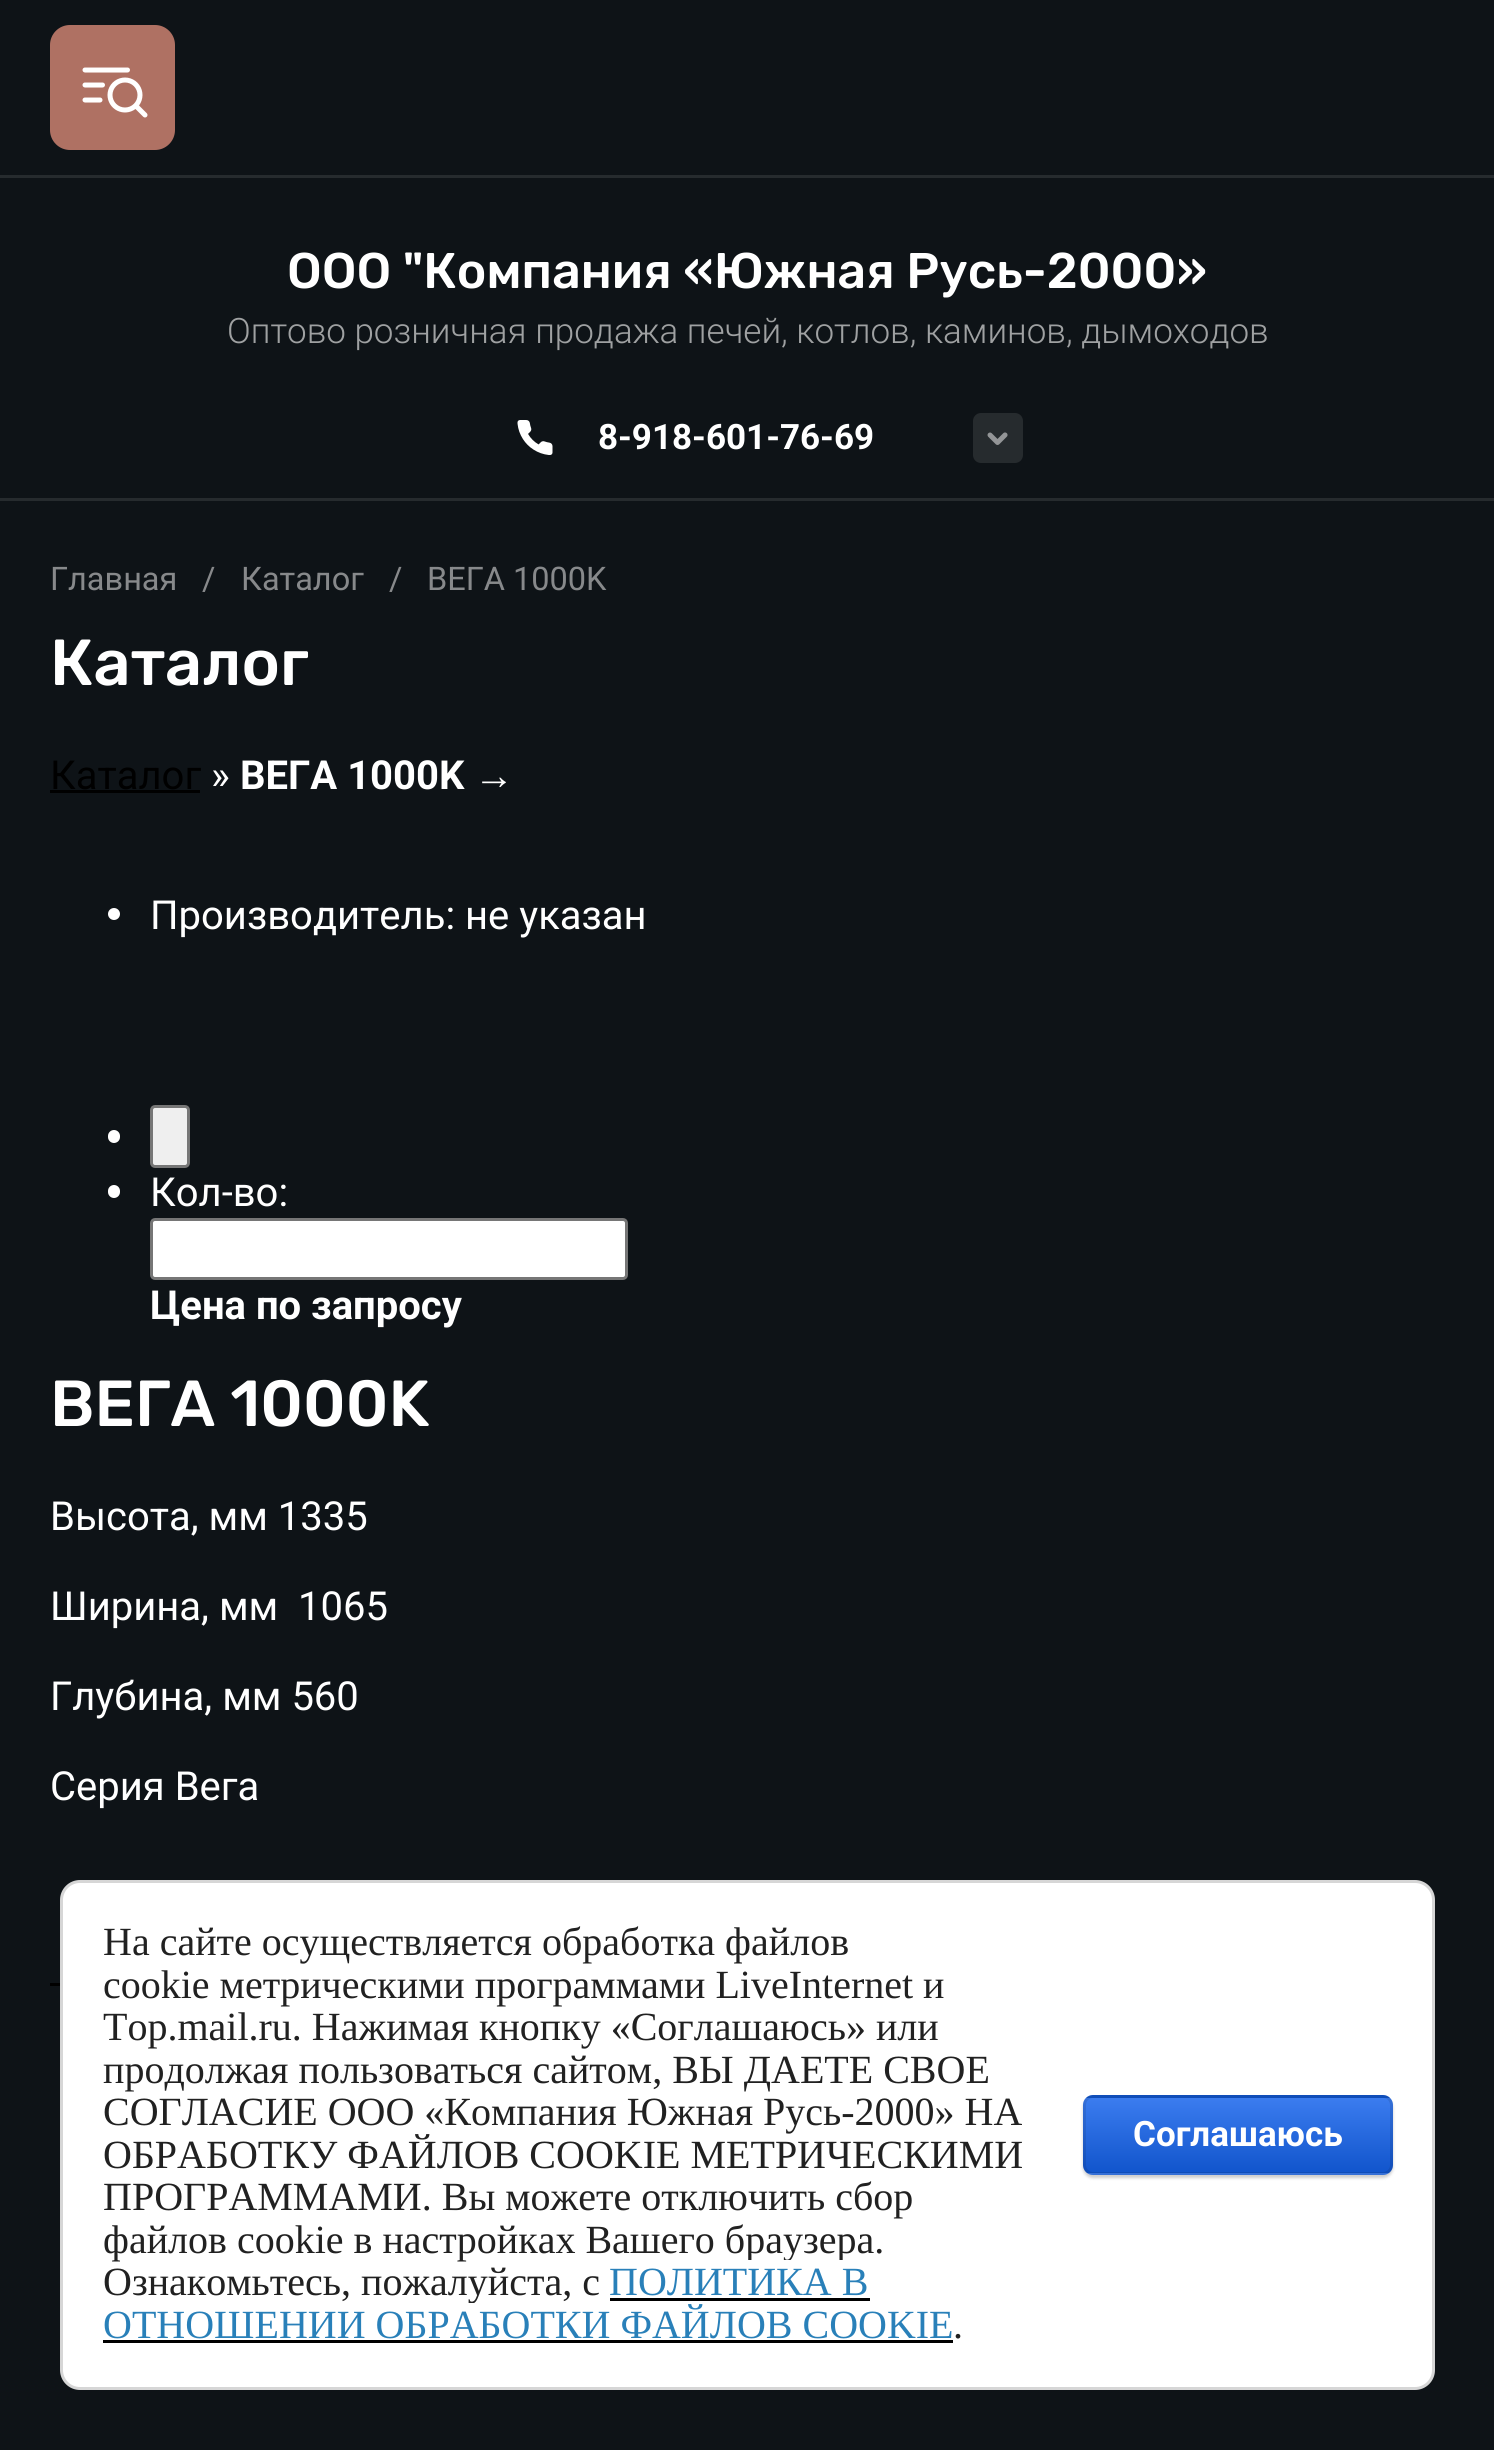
import math
import cairo

surface = cairo.ImageSurface(cairo.FORMAT_RGB24, 1494, 2450)
cr = cairo.Context(surface)
options = cairo.FontOptions()
options.set_hint_metrics(cairo.HINT_METRICS_OFF)
options.set_hint_style(cairo.HINT_STYLE_NONE)
cr.set_font_options(options)
cr.set_miter_limit(4)


def rgb(code):
    cr.set_source_rgb(*(v / 255 for v in bytes.fromhex(code[-6:])))


def rrect(x, y, w, h, r):
    cr.new_sub_path()
    for i, (u, v) in enumerate([(x + w - r, y + h - r), (x + r, y + h - r), (x + r, y + r), (x + w - r, y + r)]):
        cr.arc(u, v, r, i * math.pi / 2, (i + 1) * math.pi / 2)
    cr.close_path()


def soft_shadow(x, y, w, h, r, blur, alpha):
    cr.push_group_with_content(cairo.CONTENT_ALPHA)
    cr.set_operator(cairo.OPERATOR_SOURCE)
    for i in range(15, -16, -2):
        e = blur * i / 6
        if min(w, h) + 2 * e > 0:
            cr.set_source_rgba(0, 0, 0, alpha * math.erfc((i - 1) / 8.5) / 2)
            rrect(x - e, y - e, w + 2 * e, h + 2 * e, max(0, min(r + e + blur * .6, min(w, h) / 2 + e)))
            cr.fill()
    cr.mask(cr.pop_group())


def image(path, x, y, w, h):
    cr.save()
    cr.set_source_surface(cairo.ImageSurface.create_from_png(path), x, y)
    cr.rectangle(x, y, w, h)
    cr.fill()
    cr.restore()


rgb("#0e1317")
cr.paint()
rgb("#262b2e")
cr.rectangle(0, 175, 1494, 3)
cr.fill()
rgb("#af7163")
rrect(50, 25, 125, 125, 20)
cr.fill()
image("img/1.png", 82, 67, 66, 51)
rgb("#262b2e")
cr.rectangle(0, 498, 1494, 3)
cr.fill()
image("img/2.png", 517, 420, 36, 35)
rrect(973, 413, 50, 50, 8)
cr.fill()
image("img/3.png", 987, 432, 21, 13)
rgb("#000000")
cr.rectangle(50, 790, 150, 3)
cr.fill()
rgb("#ffffff")
cr.arc(114, 914, 6, 0, 2 * math.pi)
cr.fill()
rrect(108, 1130, 12, 13, 6)
cr.fill()
rgb("#efefef")
rrect(151.5, 1106.5, 37, 60, 3.5)
cr.fill_preserve()
rgb("#767676")
cr.set_line_width(3)
cr.stroke()
rgb("#ffffff")
rrect(108, 1185, 12, 13, 6)
cr.fill()
rrect(151.5, 1219.5, 475, 59, 3.5)
cr.fill_preserve()
rgb("#767676")
cr.stroke()
rgb("#000000")
cr.rectangle(50, 1983, 10, 3)
cr.fill()
rgb("#ffffff")
rrect(61.5, 1881.5, 1372, 507, 18.5)
cr.fill_preserve()
rgb("#d6d6d6")
cr.stroke()
rgb("#000000")
cr.rectangle(610, 2298, 260, 3)
cr.fill()
cr.rectangle(103, 2340, 850, 3)
cr.fill()
rgb("#000000")
soft_shadow(1083, 2098, 310, 80, 10, 1.5, 0.2)
cr.save()
rrect(1083, 2095, 310, 80, 10)
cr.clip()
gradient = cairo.LinearGradient(1238, 2023, 1238, 2098)
gradient.add_color_stop_rgba(0, 0.231, 0.486, 0.937, 1)
gradient.add_color_stop_rgba(1, 0.067, 0.333, 0.8, 1)
cr.set_source(gradient)
cr.rectangle(1083, 2095, 310, 3)
cr.fill()
gradient = cairo.LinearGradient(1238, 2098, 1238, 2173)
gradient.add_color_stop_rgba(0, 0.231, 0.486, 0.937, 1)
gradient.add_color_stop_rgba(1, 0.067, 0.333, 0.8, 1)
cr.set_source(gradient)
cr.rectangle(1083, 2098, 310, 75)
cr.fill()
gradient = cairo.LinearGradient(1238, 2173, 1238, 2248)
gradient.add_color_stop_rgba(0, 0.231, 0.486, 0.937, 1)
gradient.add_color_stop_rgba(1, 0.067, 0.333, 0.8, 1)
cr.set_source(gradient)
cr.rectangle(1083, 2173, 310, 2)
cr.fill()
cr.restore()
rrect(1084.5, 2096.5, 307, 77, 8.5)
cr.set_source_rgba(0, 0, 0, 0.1)
cr.stroke()
cr.select_font_face("Rubik Medium")
cr.set_font_size(50)
rgb("#ffffff")
cr.move_to(287, 288)
cr.show_text("ООО \"Компания «Южная Русь-2000»")
cr.select_font_face("Roboto Light")
cr.set_font_size(35)
rgb("#9fa1a2")
cr.move_to(227, 343)
cr.show_text("Оптово розничная продажа печей, котлов, каминов, дымоходов")
cr.select_font_face("Roboto", cairo.FONT_SLANT_NORMAL, cairo.FONT_WEIGHT_BOLD)
rgb("#ffffff")
cr.move_to(598, 449)
cr.show_text("8-918-601-76-69")
cr.select_font_face("Roboto")
cr.set_font_size(32.5)
rgb("#87898b")
for x, y, s in [
    (50, 590, "Главная"),
    (202, 590, "/"),
    (241, 590, "Каталог"),
    (389, 590, "/"),
    (427, 590, "ВЕГА 1000K"),
]:
    cr.move_to(x, y)
    cr.show_text(s)
cr.select_font_face("Rubik Medium")
cr.set_font_size(65)
rgb("#ffffff")
cr.move_to(50, 685)
cr.show_text("Каталог")
cr.select_font_face("Roboto")
cr.set_font_size(40)
rgb("#000000")
cr.move_to(50, 789)
cr.show_text("Каталог")
rgb("#ffffff")
cr.move_to(211, 789)
cr.show_text("»")
cr.select_font_face("Roboto", cairo.FONT_SLANT_NORMAL, cairo.FONT_WEIGHT_BOLD)
cr.move_to(240, 789)
cr.show_text("ВЕГА 1000K")
cr.select_font_face("Liberation Sans")
cr.move_to(474, 789)
cr.show_text("→")
cr.select_font_face("Roboto")
cr.move_to(150, 929)
cr.show_text("Производитель: не указан")
cr.move_to(150, 1206)
cr.show_text("Кол-во:")
cr.select_font_face("Roboto", cairo.FONT_SLANT_NORMAL, cairo.FONT_WEIGHT_BOLD)
cr.move_to(150, 1319)
cr.show_text("Цена по запросу")
cr.select_font_face("Rubik Medium")
cr.set_font_size(65)
cr.move_to(50, 1426)
cr.show_text("ВЕГА 1000K")
cr.select_font_face("Roboto")
cr.set_font_size(40)
for x, y, s in [
    (50, 1530, "Высота, мм 1335"),
    (50, 1620, "Ширина, мм  1065"),
    (50, 1710, "Глубина, мм 560"),
    (50, 1800, "Серия Вега"),
]:
    cr.move_to(x, y)
    cr.show_text(s)
cr.select_font_face("Liberation Serif")
rgb("#212121")
for x, y, s in [
    (103, 1955, "На сайте осуществляется обработка файлов"),
    (103, 1998, "cookie метрическими программами LiveInternet и"),
    (103, 2040, "Top.mail.ru. Нажимая кнопку «Соглашаюсь» или"),
    (103, 2083, "продолжая пользоваться сайтом, ВЫ ДАЕТЕ СВОЕ"),
    (103, 2125, "СОГЛАСИЕ ООО «Компания Южная Русь-2000» НА"),
    (103, 2168, "ОБРАБОТКУ ФАЙЛОВ COOKIE МЕТРИЧЕСКИМИ"),
    (103, 2210, "ПРОГРАММАМИ. Вы можете отключить сбор"),
    (103, 2253, "файлов cookie в настройках Вашего браузера."),
]:
    cr.move_to(x, y)
    cr.show_text(s)
rgb("#ffffff")
cr.rectangle(745, 2260, 101, 2)
cr.fill()
rgb("#212121")
cr.move_to(103, 2295)
cr.show_text("Ознакомьтесь, пожалуйста, с")
rgb("#ffffff")
cr.rectangle(468, 2303, 6, 1)
cr.fill()
rgb("#2980b9")
cr.move_to(609, 2295)
cr.show_text("ПОЛИТИКА В")
cr.move_to(103, 2338)
cr.show_text("ОТНОШЕНИИ ОБРАБОТКИ ФАЙЛОВ COOKIE")
rgb("#212121")
cr.move_to(953, 2338)
cr.show_text(".")
cr.select_font_face("Roboto", cairo.FONT_SLANT_NORMAL, cairo.FONT_WEIGHT_BOLD)
cr.set_font_size(35)
rgb("#ffffff")
cr.move_to(1133, 2146)
cr.show_text("Соглашаюсь")
surface.write_to_png("page.png")
